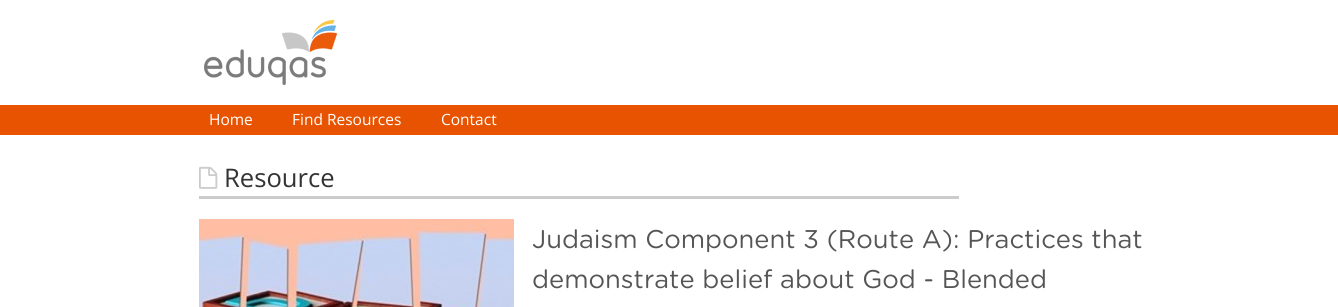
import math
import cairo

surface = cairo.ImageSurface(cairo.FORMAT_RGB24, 1338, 307)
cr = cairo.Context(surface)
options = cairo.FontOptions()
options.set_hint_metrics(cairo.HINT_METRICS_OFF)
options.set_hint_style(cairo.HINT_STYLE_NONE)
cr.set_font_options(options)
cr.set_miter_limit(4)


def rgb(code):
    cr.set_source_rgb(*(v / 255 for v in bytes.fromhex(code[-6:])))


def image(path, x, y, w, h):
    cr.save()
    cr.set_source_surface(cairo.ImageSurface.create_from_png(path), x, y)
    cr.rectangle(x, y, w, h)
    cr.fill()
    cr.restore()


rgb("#ffffff")
cr.paint()
image("img/1.png", 204, 20, 133, 65)
rgb("#e75300")
cr.rectangle(0, 105, 1338, 30)
cr.fill()
rgb("#cccccc")
cr.rectangle(199, 196, 760, 3)
cr.fill()
image("img/2.png", 199, 166, 19, 23)
image("img/3.png", 199, 219, 315, 88)
cr.select_font_face("Open Sans")
cr.set_font_size(15.5)
rgb("#ffffff")
for x, y, s in [
    (209, 125, "Home"),
    (292, 125, "Find Resources"),
    (441, 125, "Contact"),
]:
    cr.move_to(x, y)
    cr.show_text(s)
cr.set_font_size(25.6)
rgb("#333333")
cr.move_to(224, 187)
cr.show_text("Resource")
cr.select_font_face("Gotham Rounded")
rgb("#555555")
cr.move_to(532, 248)
cr.show_text("Judaism Component 3 (Route A): Practices that")
cr.move_to(532, 288)
cr.show_text("demonstrate belief about God - Blended")
surface.write_to_png("page.png")
